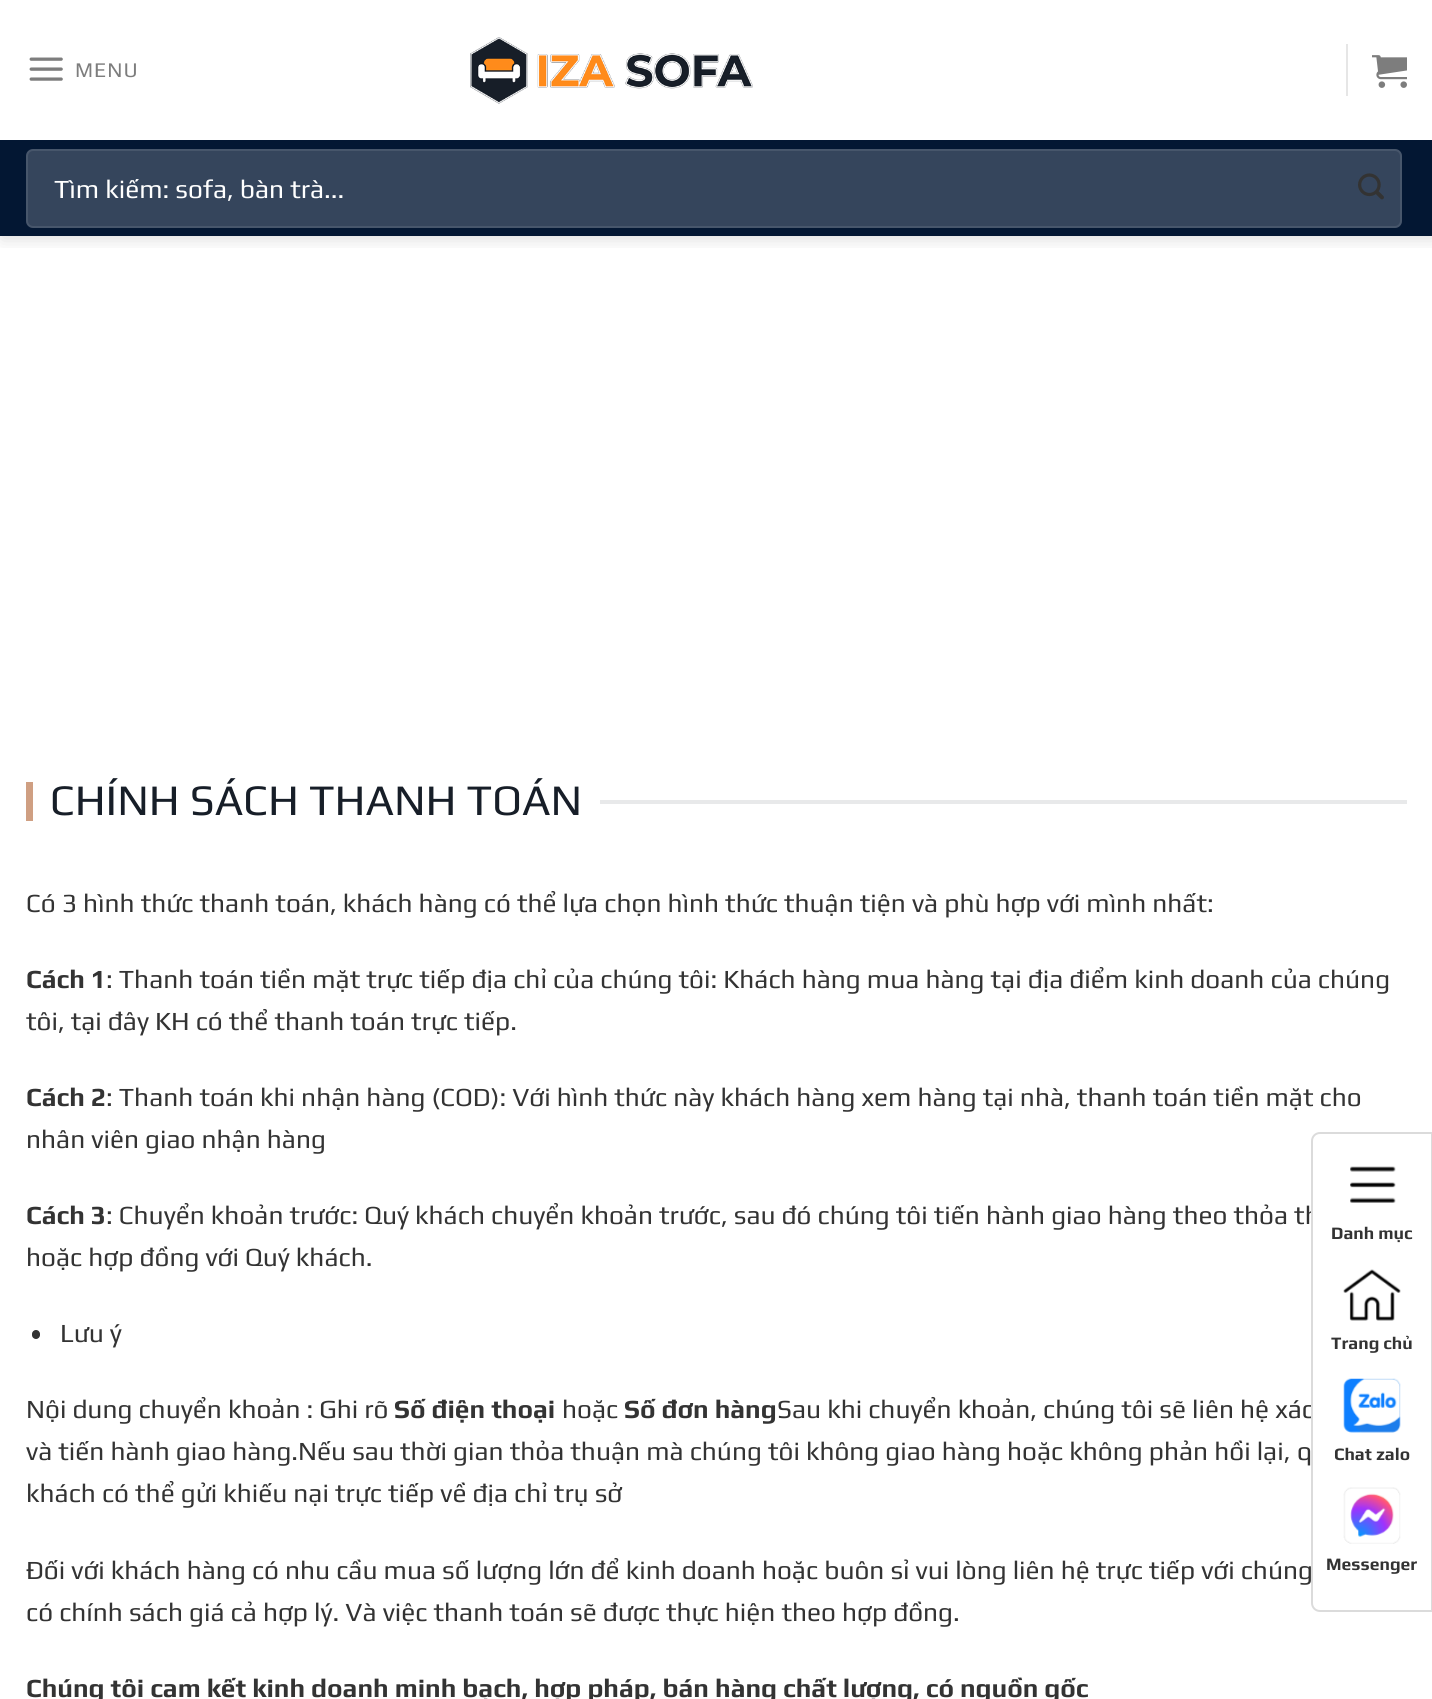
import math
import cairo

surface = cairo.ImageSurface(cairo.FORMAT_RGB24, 1432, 1699)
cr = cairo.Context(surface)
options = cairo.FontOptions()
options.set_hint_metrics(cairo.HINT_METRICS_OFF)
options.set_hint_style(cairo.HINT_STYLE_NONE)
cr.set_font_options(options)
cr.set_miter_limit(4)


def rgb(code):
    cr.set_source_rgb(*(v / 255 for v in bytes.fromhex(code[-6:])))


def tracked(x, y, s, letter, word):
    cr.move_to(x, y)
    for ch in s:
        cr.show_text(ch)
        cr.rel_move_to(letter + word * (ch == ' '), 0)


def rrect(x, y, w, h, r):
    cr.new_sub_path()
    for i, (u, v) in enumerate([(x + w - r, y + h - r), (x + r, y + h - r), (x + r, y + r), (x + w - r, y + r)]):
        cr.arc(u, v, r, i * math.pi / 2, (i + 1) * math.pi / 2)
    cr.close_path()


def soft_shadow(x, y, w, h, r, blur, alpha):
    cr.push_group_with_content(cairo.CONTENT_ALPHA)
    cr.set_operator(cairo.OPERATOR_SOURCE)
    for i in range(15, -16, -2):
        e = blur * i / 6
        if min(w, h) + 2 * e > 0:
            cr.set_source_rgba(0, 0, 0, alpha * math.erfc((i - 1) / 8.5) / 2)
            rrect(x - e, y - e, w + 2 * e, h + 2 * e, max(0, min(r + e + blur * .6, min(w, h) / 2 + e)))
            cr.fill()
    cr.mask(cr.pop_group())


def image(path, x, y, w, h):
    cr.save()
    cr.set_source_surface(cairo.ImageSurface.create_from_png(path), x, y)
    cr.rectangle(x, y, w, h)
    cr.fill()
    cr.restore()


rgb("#ffffff")
cr.paint()
cr.save()
cr.rectangle(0, 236, 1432, 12)
cr.clip()
rgb("#000000")
soft_shadow(2, 2, 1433, 236, 0, 9, 0.15)
cr.restore()
image("img/1.png", 29, 57, 34, 24)
image("img/2.png", 470, 37, 283, 67)
rgb("#e6e6e6")
cr.rectangle(1346, 44, 2, 52)
cr.fill()
image("img/3.png", 1372, 55, 35, 33)
rgb("#031733")
cr.rectangle(0, 140, 1432, 96)
cr.fill()
rgb("#35455c")
rrect(26, 149, 1376, 79, 7)
cr.fill()
rrect(27, 150, 1374, 77, 6)
cr.set_source_rgba(1, 1, 1, 0.09)
cr.stroke()
image("img/4.png", 1358, 173, 26, 27)
rgb("#cf9f82")
cr.rectangle(26, 782, 7, 39)
cr.fill()
rgb("#e8e9ea")
cr.rectangle(600, 800, 807, 4)
cr.fill()
rgb("#333333")
rrect(32, 1330, 8, 9, 4)
cr.fill()
cr.select_font_face("Play")
cr.set_font_size(21)
rgb("#7d7d7d")
tracked(75, 77, "MENU", 1, 0)
cr.set_font_size(26.25)
rgb("#ffffff")
cr.move_to(54, 198)
cr.show_text("Tìm kiếm: sofa, bàn trà...")
cr.set_font_size(43.75)
rgb("#171e28")
cr.move_to(50, 815)
cr.show_text("CHÍNH SÁCH THANH TOÁN")
cr.set_font_size(26.25)
rgb("#333333")
cr.move_to(26, 912)
cr.show_text("Có 3 hình thức thanh toán, khách hàng có thể lựa chọn hình thức thuận tiện và phù hợp với mình nhất:")
cr.select_font_face("Play", cairo.FONT_SLANT_NORMAL, cairo.FONT_WEIGHT_BOLD)
cr.move_to(26, 988)
cr.show_text("Cách 1")
cr.select_font_face("Play")
cr.move_to(106, 988)
cr.show_text(": Thanh toán tiền mặt trực tiếp địa chỉ của chúng tôi: Khách hàng mua hàng tại địa điểm kinh doanh của chúng")
cr.move_to(26, 1030)
cr.show_text("tôi, tại đây KH có thể thanh toán trực tiếp.")
cr.select_font_face("Play", cairo.FONT_SLANT_NORMAL, cairo.FONT_WEIGHT_BOLD)
cr.move_to(26, 1106)
cr.show_text("Cách 2")
cr.select_font_face("Play")
cr.move_to(106, 1106)
cr.show_text(": Thanh toán khi nhận hàng (COD): Với hình thức này khách hàng xem hàng tại nhà, thanh toán tiền mặt cho")
cr.move_to(26, 1148)
cr.show_text("nhân viên giao nhận hàng")
cr.select_font_face("Play", cairo.FONT_SLANT_NORMAL, cairo.FONT_WEIGHT_BOLD)
cr.move_to(26, 1224)
cr.show_text("Cách 3")
cr.select_font_face("Play")
for x, y, s in [
    (106, 1224, ": Chuyển khoản trước: Quý khách chuyển khoản trước, sau đó chúng tôi tiến hành giao hàng theo thỏa th"),
    (26, 1266, "hoặc hợp đồng với Quý khách."),
    (60, 1342, "Lưu ý"),
    (26, 1418, "Nội dung chuyển khoản : Ghi rõ"),
]:
    cr.move_to(x, y)
    cr.show_text(s)
cr.select_font_face("Play", cairo.FONT_SLANT_NORMAL, cairo.FONT_WEIGHT_BOLD)
cr.move_to(394, 1418)
cr.show_text("Số điện thoại")
cr.select_font_face("Play")
cr.move_to(562, 1418)
cr.show_text("hoặc")
cr.select_font_face("Play", cairo.FONT_SLANT_NORMAL, cairo.FONT_WEIGHT_BOLD)
cr.move_to(624, 1418)
cr.show_text("Số đơn hàng")
cr.select_font_face("Play")
for x, y, s in [
    (777, 1418, "Sau khi chuyển khoản, chúng tôi sẽ liên hệ xác"),
    (26, 1460, "và tiến hành giao hàng.Nếu sau thời gian thỏa thuận mà chúng tôi không giao hàng hoặc không phản hồi lại, q"),
    (26, 1502, "khách có thể gửi khiếu nại trực tiếp về địa chỉ trụ sở"),
    (26, 1579, "Đối với khách hàng có nhu cầu mua số lượng lớn để kinh doanh hoặc buôn sỉ vui lòng liên hệ trực tiếp với chúng"),
    (26, 1621, "có chính sách giá cả hợp lý. Và việc thanh toán sẽ được thực hiện theo hợp đồng."),
]:
    cr.move_to(x, y)
    cr.show_text(s)
cr.select_font_face("Play", cairo.FONT_SLANT_NORMAL, cairo.FONT_WEIGHT_BOLD)
cr.move_to(26, 1697)
cr.show_text("Chúng tôi cam kết kinh doanh minh bạch, hợp pháp, bán hàng chất lượng, có nguồn gốc")
rgb("#ffffff")
cr.new_path()
cr.move_to(1320, 1133)
cr.line_to(1432, 1133)
cr.line_to(1432, 1611)
cr.line_to(1320, 1611)
cr.curve_to(1315.5, 1611, 1312, 1607.5, 1312, 1603)
cr.line_to(1312, 1141)
cr.curve_to(1312, 1136.5, 1315.5, 1133, 1320, 1133)
cr.close_path()
cr.fill_preserve()
rgb("#dbdbdb")
cr.stroke()
image("img/5.png", 1350, 1166, 46, 37)
cr.set_font_size(17.5)
rgb("#333333")
cr.move_to(1331, 1239)
cr.show_text("Danh mục")
image("img/6.png", 1343, 1269, 58, 52)
cr.move_to(1331, 1349)
cr.show_text("Trang chủ")
image("img/7.png", 1343, 1378, 58, 55)
cr.move_to(1334, 1460)
cr.show_text("Chat zalo")
image("img/8.png", 1343, 1487, 58, 57)
cr.move_to(1326, 1570)
cr.show_text("Messenger")
surface.write_to_png("page.png")
